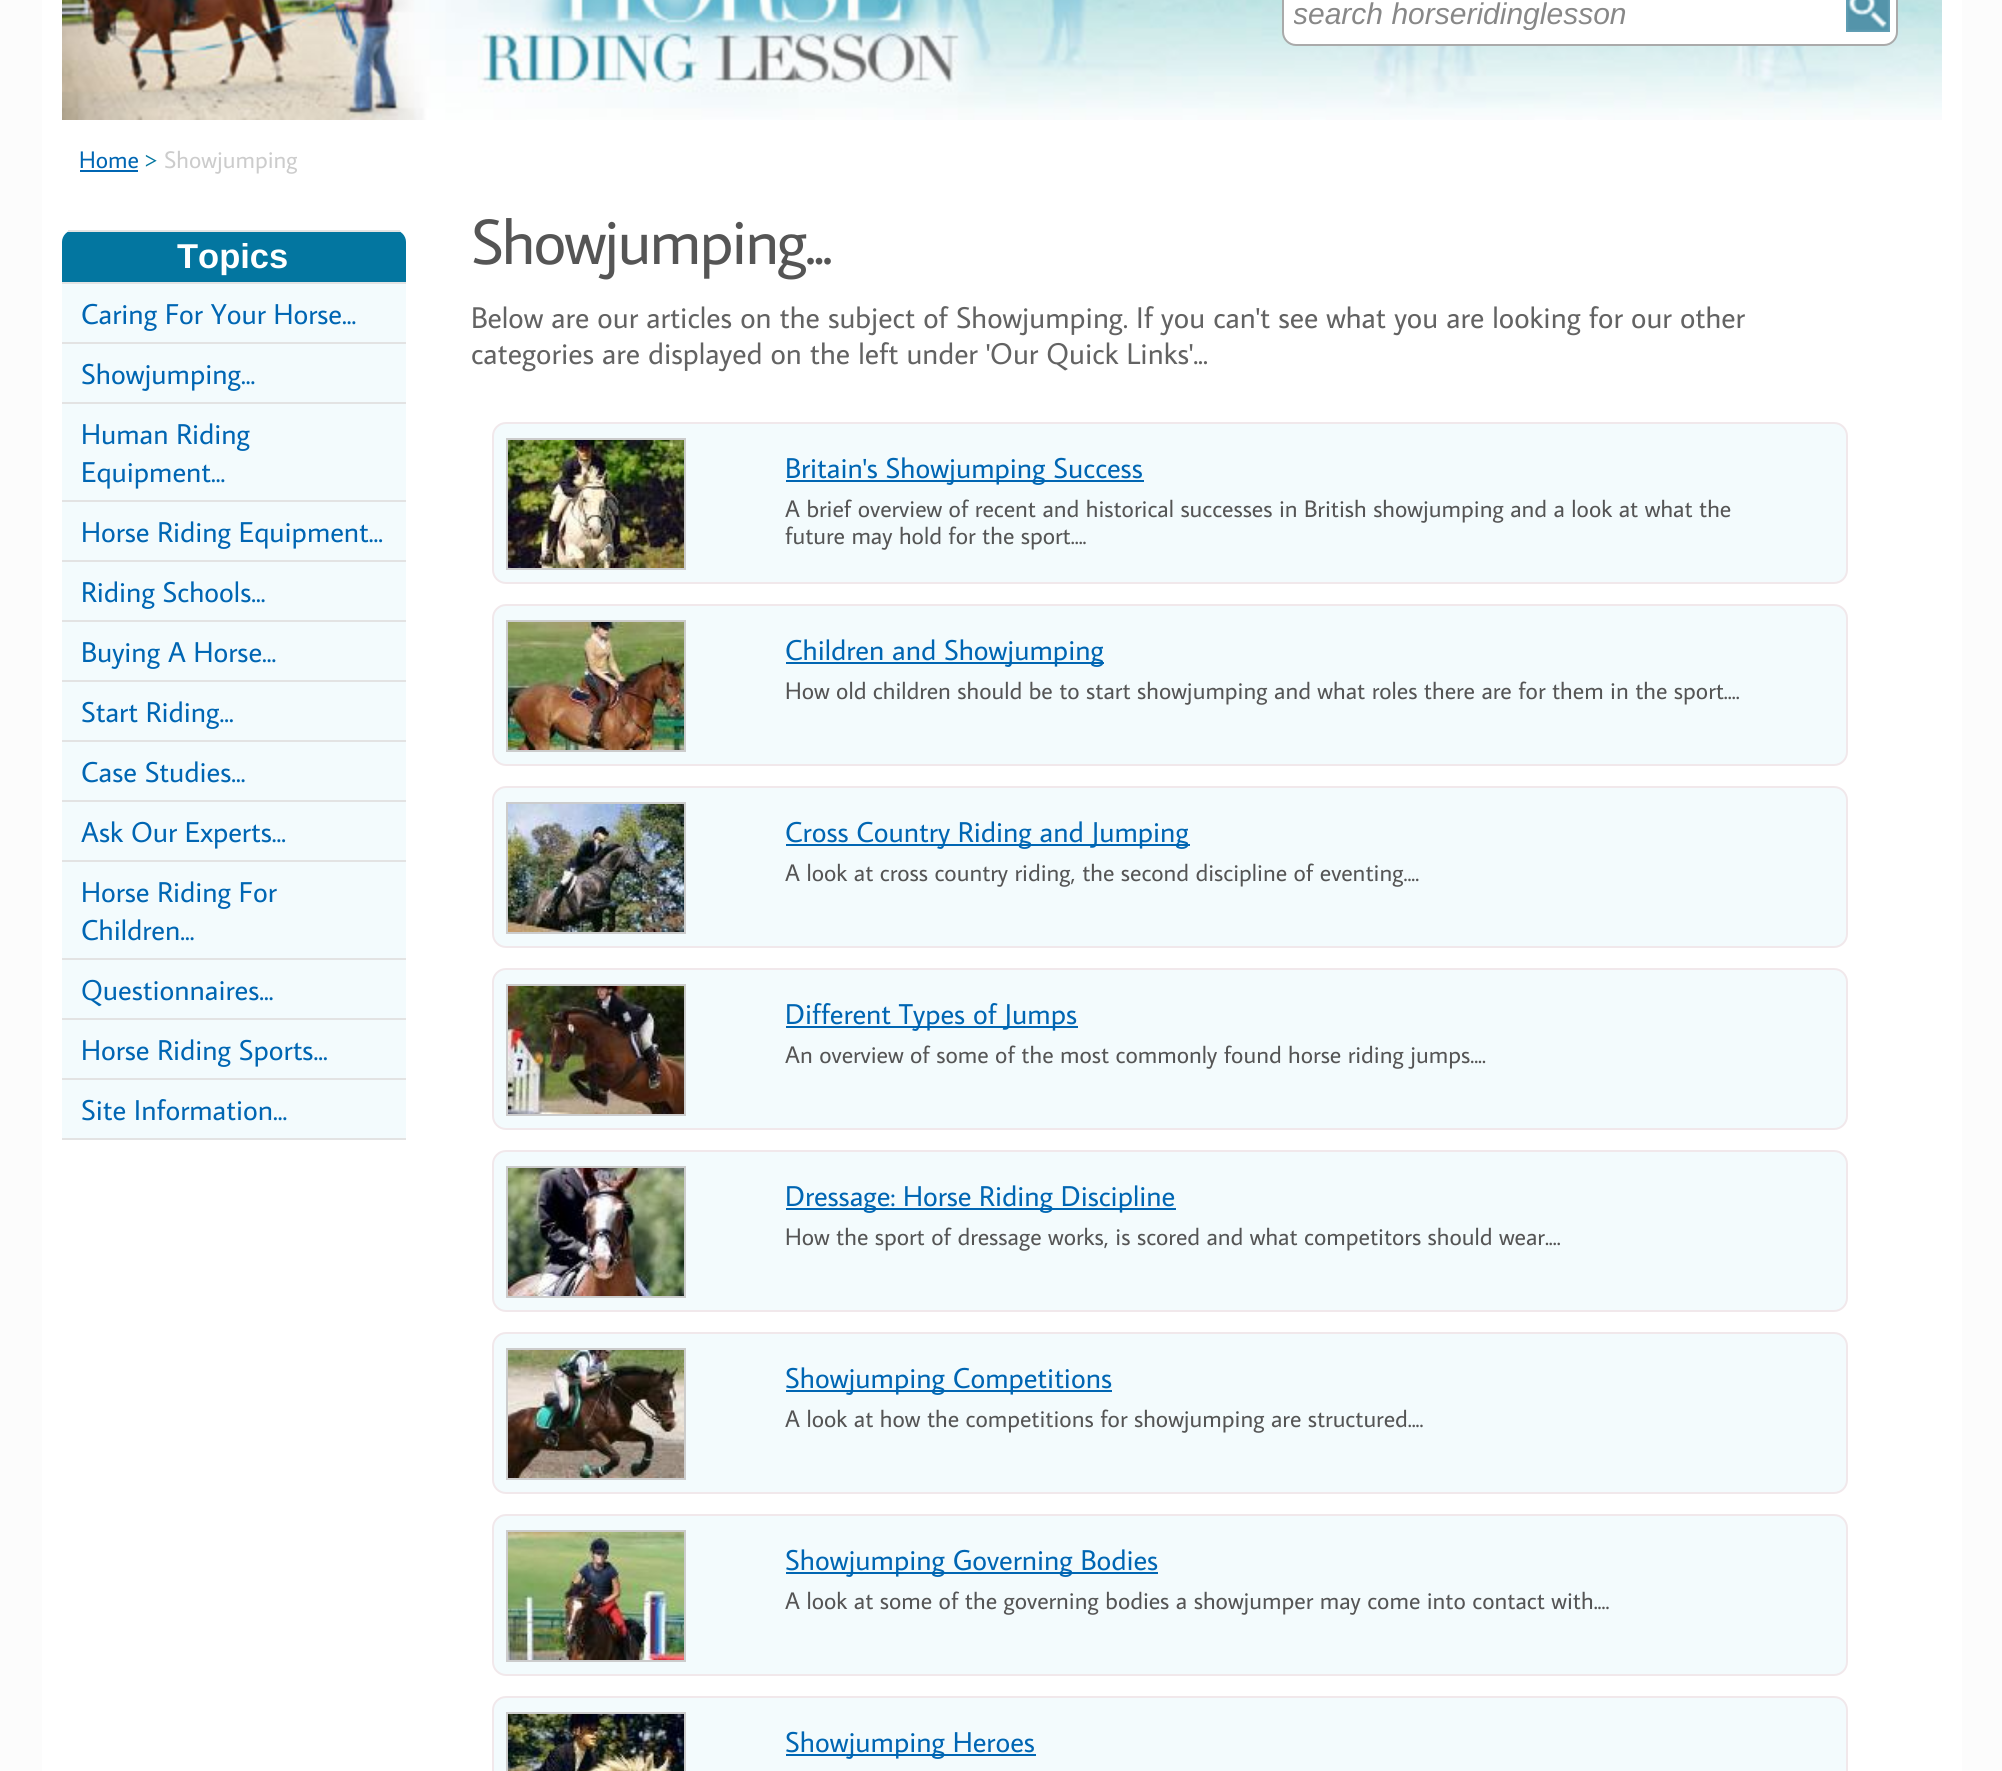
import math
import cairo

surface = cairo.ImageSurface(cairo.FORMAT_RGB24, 2002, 1771)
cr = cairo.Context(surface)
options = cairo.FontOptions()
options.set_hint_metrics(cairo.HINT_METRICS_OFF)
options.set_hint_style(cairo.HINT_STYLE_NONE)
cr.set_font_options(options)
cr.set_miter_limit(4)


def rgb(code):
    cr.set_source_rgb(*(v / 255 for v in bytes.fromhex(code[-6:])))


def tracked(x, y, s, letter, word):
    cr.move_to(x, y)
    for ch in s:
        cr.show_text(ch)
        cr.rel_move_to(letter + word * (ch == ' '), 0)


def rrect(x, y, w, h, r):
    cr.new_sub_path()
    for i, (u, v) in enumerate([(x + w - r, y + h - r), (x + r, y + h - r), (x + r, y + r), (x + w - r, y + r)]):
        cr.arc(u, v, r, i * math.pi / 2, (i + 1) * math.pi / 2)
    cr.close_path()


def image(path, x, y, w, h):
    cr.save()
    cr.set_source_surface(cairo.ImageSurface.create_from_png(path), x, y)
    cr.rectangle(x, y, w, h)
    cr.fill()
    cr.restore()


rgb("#fcfcfc")
cr.paint()
rgb("#ffffff")
cr.rectangle(42, 0, 1920, 1771)
cr.fill()
image("img/2.png", 62, 0, 1880, 120)
rrect(1283, -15, 614, 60, 13)
cr.fill_preserve()
rgb("#aaaaaa")
cr.stroke()
image("img/1.png", 1846, 0, 44, 32)
rgb("#0066b3")
cr.rectangle(80, 170, 58, 2)
cr.fill()
rgb("#0376a0")
cr.new_path()
cr.move_to(74, 230)
cr.line_to(394, 230)
cr.curve_to(400.5, 230, 406, 235.5, 406, 242)
cr.line_to(406, 284)
cr.line_to(62, 284)
cr.line_to(62, 242)
cr.curve_to(62, 235.5, 67.5, 230, 74, 230)
cr.close_path()
cr.fill()
for x, y, w, h, color in [
    (68, 230, 332, 2, "#e3e3e3"),
    (62, 282, 344, 2, "#e3e3e3"),
    (62, 284, 344, 58, "#f3fbfd"),
    (62, 342, 344, 2, "#e3e3e3"),
    (62, 344, 344, 58, "#f3fbfd"),
    (62, 402, 344, 2, "#e3e3e3"),
    (62, 404, 344, 96, "#f3fbfd"),
    (62, 500, 344, 2, "#e3e3e3"),
    (62, 502, 344, 58, "#f3fbfd"),
    (62, 560, 344, 2, "#e3e3e3"),
    (62, 562, 344, 58, "#f3fbfd"),
    (62, 620, 344, 2, "#e3e3e3"),
    (62, 622, 344, 58, "#f3fbfd"),
    (62, 680, 344, 2, "#e3e3e3"),
    (62, 682, 344, 58, "#f3fbfd"),
    (62, 740, 344, 2, "#e3e3e3"),
    (62, 742, 344, 58, "#f3fbfd"),
    (62, 800, 344, 2, "#e3e3e3"),
    (62, 802, 344, 58, "#f3fbfd"),
    (62, 860, 344, 2, "#e3e3e3"),
    (62, 862, 344, 96, "#f3fbfd"),
    (62, 958, 344, 2, "#e3e3e3"),
    (62, 960, 344, 58, "#f3fbfd"),
    (62, 1018, 344, 2, "#e3e3e3"),
    (62, 1020, 344, 58, "#f3fbfd"),
    (62, 1078, 344, 2, "#e3e3e3"),
    (62, 1080, 344, 58, "#f3fbfd"),
    (62, 1138, 344, 2, "#e3e3e3"),
]:
    rgb(color)
    cr.rectangle(x, y, w, h)
    cr.fill()
rgb("#f3fbfd")
rrect(493, 423, 1354, 160, 13)
cr.fill_preserve()
rgb("#f1e8eb")
cr.stroke()
cr.rectangle(507, 439, 178, 130)
rgb("#cccccc")
cr.stroke()
image("img/3.png", 508, 440, 176, 128)
rgb("#0066b3")
cr.rectangle(786, 480, 358, 2)
cr.fill()
rgb("#f3fbfd")
rrect(493, 605, 1354, 160, 13)
cr.fill_preserve()
rgb("#f1e8eb")
cr.stroke()
cr.rectangle(507, 621, 178, 130)
rgb("#cccccc")
cr.stroke()
image("img/4.png", 508, 622, 176, 128)
rgb("#0066b3")
cr.rectangle(786, 662, 318, 2)
cr.fill()
rgb("#f3fbfd")
rrect(493, 787, 1354, 160, 13)
cr.fill_preserve()
rgb("#f1e8eb")
cr.stroke()
cr.rectangle(507, 803, 178, 130)
rgb("#cccccc")
cr.stroke()
image("img/5.png", 508, 804, 176, 128)
rgb("#0066b3")
cr.rectangle(786, 844, 404, 2)
cr.fill()
rgb("#f3fbfd")
rrect(493, 969, 1354, 160, 13)
cr.fill_preserve()
rgb("#f1e8eb")
cr.stroke()
cr.rectangle(507, 985, 178, 130)
rgb("#cccccc")
cr.stroke()
image("img/6.png", 508, 986, 176, 128)
rgb("#0066b3")
cr.rectangle(786, 1026, 292, 2)
cr.fill()
rgb("#f3fbfd")
rrect(493, 1151, 1354, 160, 13)
cr.fill_preserve()
rgb("#f1e8eb")
cr.stroke()
cr.rectangle(507, 1167, 178, 130)
rgb("#cccccc")
cr.stroke()
image("img/7.png", 508, 1168, 176, 128)
rgb("#0066b3")
cr.rectangle(786, 1208, 390, 2)
cr.fill()
rgb("#f3fbfd")
rrect(493, 1333, 1354, 160, 13)
cr.fill_preserve()
rgb("#f1e8eb")
cr.stroke()
cr.rectangle(507, 1349, 178, 130)
rgb("#cccccc")
cr.stroke()
image("img/8.png", 508, 1350, 176, 128)
rgb("#0066b3")
cr.rectangle(786, 1390, 326, 2)
cr.fill()
rgb("#f3fbfd")
rrect(493, 1515, 1354, 160, 13)
cr.fill_preserve()
rgb("#f1e8eb")
cr.stroke()
cr.rectangle(507, 1531, 178, 130)
rgb("#cccccc")
cr.stroke()
image("img/9.png", 508, 1532, 176, 128)
rgb("#0066b3")
cr.rectangle(786, 1572, 372, 2)
cr.fill()
rgb("#f3fbfd")
rrect(493, 1697, 1354, 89, 13)
cr.fill_preserve()
rgb("#f1e8eb")
cr.stroke()
cr.rectangle(507, 1713, 178, 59)
rgb("#cccccc")
cr.stroke()
image("img/10.png", 508, 1714, 176, 57)
rgb("#0066b3")
cr.rectangle(786, 1754, 250, 2)
cr.fill()
cr.save()
cr.rectangle(1294, 0, 540, 30)
cr.clip()
cr.select_font_face("Liberation Sans", cairo.FONT_SLANT_ITALIC)
cr.set_font_size(30)
rgb("#888888")
cr.move_to(1293, 24)
cr.show_text("search horseridinglesson")
cr.restore()
cr.select_font_face("Average Sans")
cr.set_font_size(24)
cr.move_to(79, 168)
cr.show_text("Home")
rgb("#0376a0")
cr.move_to(145, 168)
cr.show_text(">")
rgb("#cccccc")
cr.move_to(164, 168)
cr.show_text("Showjumping")
cr.select_font_face("Liberation Sans", cairo.FONT_SLANT_NORMAL, cairo.FONT_WEIGHT_BOLD)
cr.set_font_size(34.5)
rgb("#ffffff")
cr.move_to(177, 268)
cr.show_text("Topics")
cr.select_font_face("Average Sans")
cr.set_font_size(28.75)
rgb("#0066b3")
for x, y, s in [
    (81, 324, "Caring For Your Horse..."),
    (81, 384, "Showjumping..."),
    (81, 444, "Human Riding"),
    (81, 482, "Equipment..."),
    (81, 542, "Horse Riding Equipment..."),
    (81, 602, "Riding Schools..."),
    (81, 662, "Buying A Horse..."),
    (81, 722, "Start Riding..."),
    (81, 782, "Case Studies..."),
    (81, 842, "Ask Our Experts..."),
    (81, 902, "Horse Riding For"),
    (81, 940, "Children..."),
    (81, 1000, "Questionnaires..."),
    (81, 1060, "Horse Riding Sports..."),
    (81, 1120, "Site Information..."),
]:
    cr.move_to(x, y)
    cr.show_text(s)
cr.set_font_size(64)
rgb("#555555")
tracked(471, 264, "Showjumping...", -2, 0)
cr.set_font_size(30)
rgb("#636363")
cr.move_to(471, 328)
cr.show_text("Below are our articles on the subject of Showjumping. If you can't see what you are looking for our other")
cr.move_to(471, 364)
cr.show_text("categories are displayed on the left under 'Our Quick Links'...")
cr.set_font_size(28.75)
rgb("#0066b3")
cr.move_to(785, 478)
cr.show_text("Britain's Showjumping Success")
cr.set_font_size(24)
rgb("#555555")
cr.move_to(785, 517)
cr.show_text("A brief overview of recent and historical successes in British showjumping and a look at what the")
cr.move_to(785, 544)
cr.show_text("future may hold for the sport....")
cr.set_font_size(28.75)
rgb("#0066b3")
cr.move_to(785, 660)
cr.show_text("Children and Showjumping")
cr.set_font_size(24)
rgb("#555555")
cr.move_to(785, 699)
cr.show_text("How old children should be to start showjumping and what roles there are for them in the sport....")
cr.set_font_size(28.75)
rgb("#0066b3")
cr.move_to(785, 842)
cr.show_text("Cross Country Riding and Jumping")
cr.set_font_size(24)
rgb("#555555")
cr.move_to(785, 881)
cr.show_text("A look at cross country riding, the second discipline of eventing....")
cr.set_font_size(28.75)
rgb("#0066b3")
cr.move_to(785, 1024)
cr.show_text("Different Types of Jumps")
cr.set_font_size(24)
rgb("#555555")
cr.move_to(785, 1063)
cr.show_text("An overview of some of the most commonly found horse riding jumps....")
cr.set_font_size(28.75)
rgb("#0066b3")
cr.move_to(785, 1206)
cr.show_text("Dressage: Horse Riding Discipline")
cr.set_font_size(24)
rgb("#555555")
cr.move_to(785, 1245)
cr.show_text("How the sport of dressage works, is scored and what competitors should wear....")
cr.set_font_size(28.75)
rgb("#0066b3")
cr.move_to(785, 1388)
cr.show_text("Showjumping Competitions")
cr.set_font_size(24)
rgb("#555555")
cr.move_to(785, 1427)
cr.show_text("A look at how the competitions for showjumping are structured....")
cr.set_font_size(28.75)
rgb("#0066b3")
cr.move_to(785, 1570)
cr.show_text("Showjumping Governing Bodies")
cr.set_font_size(24)
rgb("#555555")
cr.move_to(785, 1609)
cr.show_text("A look at some of the governing bodies a showjumper may come into contact with....")
cr.set_font_size(28.75)
rgb("#0066b3")
cr.move_to(785, 1752)
cr.show_text("Showjumping Heroes")
surface.write_to_png("page.png")
